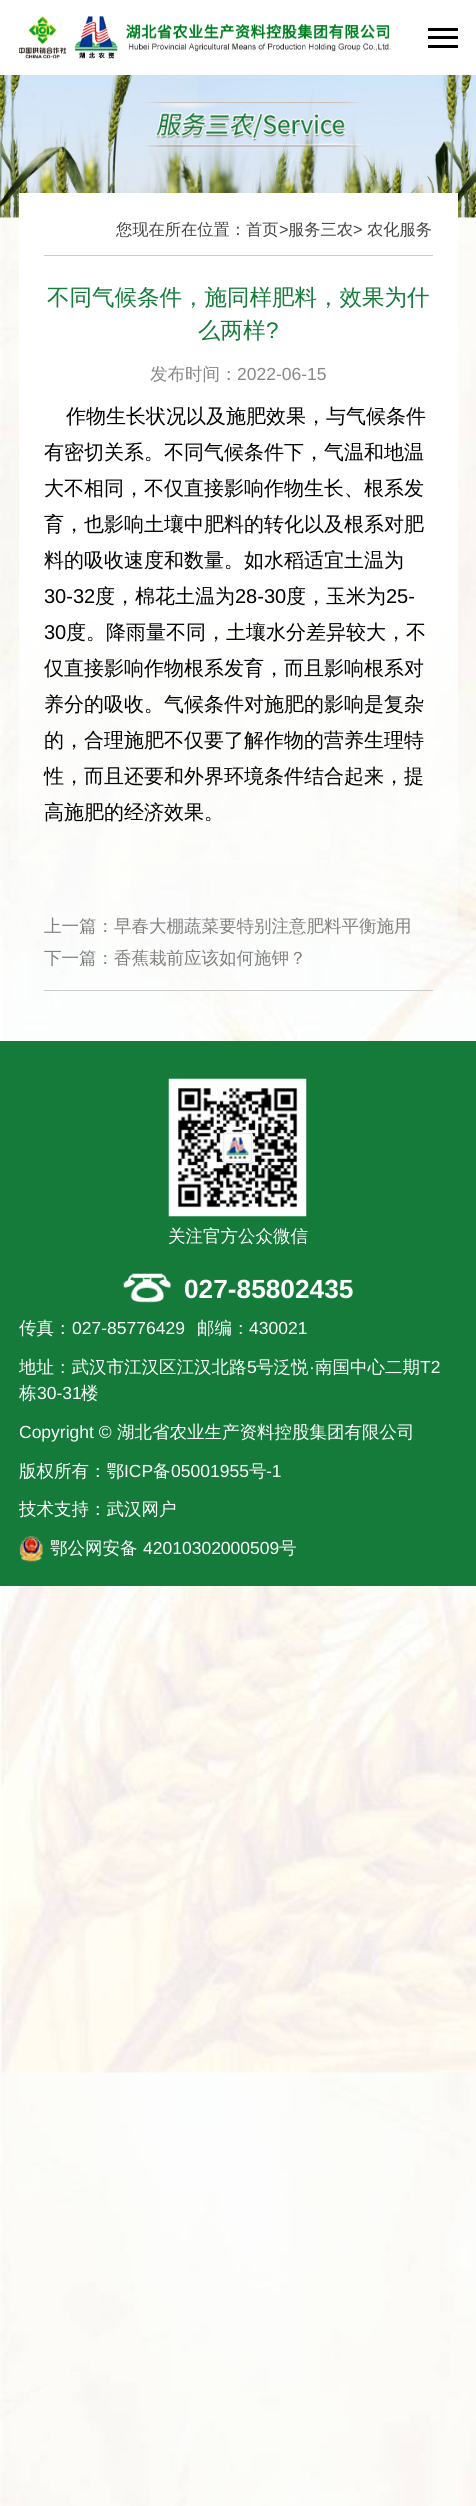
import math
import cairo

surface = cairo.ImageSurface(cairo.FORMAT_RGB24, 476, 2506)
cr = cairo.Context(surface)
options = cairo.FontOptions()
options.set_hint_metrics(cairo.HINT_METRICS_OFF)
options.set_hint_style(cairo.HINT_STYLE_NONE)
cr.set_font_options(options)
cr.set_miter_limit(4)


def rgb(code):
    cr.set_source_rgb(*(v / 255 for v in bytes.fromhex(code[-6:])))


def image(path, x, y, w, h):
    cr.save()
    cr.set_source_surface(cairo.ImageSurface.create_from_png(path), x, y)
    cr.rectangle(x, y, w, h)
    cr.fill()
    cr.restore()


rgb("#ffffff")
cr.paint()
image("img/1.png", 0, 217, 476, 2289)
image("img/2.png", 19, 16, 372, 43)
for x, y, w, h, color in [
    (428, 28, 30, 3, "#000000"),
    (428, 36, 30, 3, "#000000"),
    (428, 45, 30, 3, "#000000"),
]:
    rgb(color)
    cr.rectangle(x, y, w, h)
    cr.fill()
image("img/3.png", 0, 75, 476, 143)
gradient = cairo.LinearGradient(238, 193, 238, 1016)
gradient.add_color_stop_rgba(0, 1, 1, 1, 1)
gradient.add_color_stop_rgba(0.5, 1, 1, 1, 1)
gradient.add_color_stop_rgba(1, 1, 1, 1, 0)
cr.set_source(gradient)
cr.rectangle(19, 193, 439, 738)
cr.fill()
for x, y, w, h, color in [
    (44, 255, 389, 1, "#cccccc"),
    (44, 990, 389, 1, "#cccccc"),
    (0, 1041, 476, 545, "#147b3b"),
]:
    rgb(color)
    cr.rectangle(x, y, w, h)
    cr.fill()
image("img/4.png", 168, 1078, 139, 139)
image("img/5.png", 123, 1273, 49, 30)
image("img/6.png", 19, 1536, 24, 26)
cr.select_font_face("WenQuanYi Zen Hei Medium")
cr.set_font_size(16.25)
rgb("#434343")
cr.move_to(116, 235)
cr.show_text("您现在所在位置：首页")
cr.select_font_face("Liberation Sans")
cr.move_to(279, 235)
cr.show_text(">")
cr.select_font_face("WenQuanYi Zen Hei Medium")
cr.move_to(288, 235)
cr.show_text("服务三农")
cr.select_font_face("Liberation Sans")
cr.move_to(353, 235)
cr.show_text(">")
cr.select_font_face("WenQuanYi Zen Hei Medium")
cr.move_to(367, 235)
cr.show_text("农化服务")
cr.set_font_size(22.5)
rgb("#147b3b")
cr.move_to(47, 305)
cr.show_text("不同气候条件，施同样肥料，效果为什")
cr.move_to(198, 338)
cr.show_text("么两样")
cr.select_font_face("Liberation Sans")
cr.move_to(266, 338)
cr.show_text("?")
cr.select_font_face("WenQuanYi Zen Hei Medium")
cr.set_font_size(17.5)
rgb("#888888")
cr.move_to(150, 380)
cr.show_text("发布时间：")
cr.select_font_face("Liberation Sans")
cr.move_to(237, 380)
cr.show_text("2022-06-15")
cr.select_font_face("WenQuanYi Zen Hei Medium")
cr.set_font_size(20)
rgb("#000000")
for x, y, s in [
    (66, 423, "作物生长状况以及施肥效果，与气候条件"),
    (44, 459, "有密切关系。不同气候条件下，气温和地温"),
    (44, 495, "大不相同，不仅直接影响作物生长、根系发"),
    (44, 531, "育，也影响土壤中肥料的转化以及根系对肥"),
    (44, 567, "料的吸收速度和数量。如水稻适宜土温为"),
]:
    cr.move_to(x, y)
    cr.show_text(s)
cr.select_font_face("Liberation Sans")
cr.move_to(44, 603)
cr.show_text("30-32")
cr.select_font_face("WenQuanYi Zen Hei Medium")
cr.move_to(95, 603)
cr.show_text("度，棉花土温为")
cr.select_font_face("Liberation Sans")
cr.move_to(235, 603)
cr.show_text("28-30")
cr.select_font_face("WenQuanYi Zen Hei Medium")
cr.move_to(286, 603)
cr.show_text("度，玉米为")
cr.select_font_face("Liberation Sans")
cr.move_to(386, 603)
cr.show_text("25-")
cr.move_to(44, 639)
cr.show_text("30")
cr.select_font_face("WenQuanYi Zen Hei Medium")
for x, y, s in [
    (66, 639, "度。降雨量不同，土壤水分差异较大，不"),
    (44, 675, "仅直接影响作物根系发育，而且影响根系对"),
    (44, 711, "养分的吸收。气候条件对施肥的影响是复杂"),
    (44, 747, "的，合理施肥不仅要了解作物的营养生理特"),
    (44, 783, "性，而且还要和外界环境条件结合起来，提"),
    (44, 819, "高施肥的经济效果。"),
]:
    cr.move_to(x, y)
    cr.show_text(s)
cr.set_font_size(17.5)
rgb("#808080")
cr.move_to(44, 932)
cr.show_text("上一篇：早春大棚蔬菜要特别注意肥料平衡施用")
cr.move_to(44, 964)
cr.show_text("下一篇：香蕉栽前应该如何施钾？")
rgb("#ffffff")
cr.move_to(168, 1242)
cr.show_text("关注官方公众微信")
cr.select_font_face("Liberation Sans", cairo.FONT_SLANT_NORMAL, cairo.FONT_WEIGHT_BOLD)
cr.set_font_size(26.25)
cr.move_to(184, 1298)
cr.show_text("027-85802435")
cr.select_font_face("WenQuanYi Zen Hei Medium")
cr.set_font_size(17.5)
cr.move_to(19, 1334)
cr.show_text("传真：")
cr.select_font_face("Liberation Sans")
cr.move_to(72, 1334)
cr.show_text("027-85776429")
cr.select_font_face("WenQuanYi Zen Hei Medium")
cr.move_to(197, 1334)
cr.show_text("邮编：")
cr.select_font_face("Liberation Sans")
cr.move_to(249, 1334)
cr.show_text("430021")
cr.select_font_face("WenQuanYi Zen Hei Medium")
cr.move_to(19, 1373)
cr.show_text("地址：武汉市江汉区江汉北路")
cr.select_font_face("Liberation Sans")
cr.move_to(247, 1373)
cr.show_text("5")
cr.select_font_face("WenQuanYi Zen Hei Medium")
cr.move_to(256, 1373)
cr.show_text("号泛悦")
cr.select_font_face("Liberation Sans")
cr.move_to(309, 1373)
cr.show_text("·")
cr.select_font_face("WenQuanYi Zen Hei Medium")
cr.move_to(315, 1373)
cr.show_text("南国中心二期")
cr.select_font_face("Liberation Sans")
cr.move_to(420, 1373)
cr.show_text("T2")
cr.select_font_face("WenQuanYi Zen Hei Medium")
cr.move_to(19, 1399)
cr.show_text("栋")
cr.select_font_face("Liberation Sans")
cr.move_to(37, 1399)
cr.show_text("30-31")
cr.select_font_face("WenQuanYi Zen Hei Medium")
cr.move_to(81, 1399)
cr.show_text("楼")
cr.select_font_face("Liberation Sans")
cr.move_to(19, 1438)
cr.show_text("Copyright ©")
cr.select_font_face("WenQuanYi Zen Hei Medium")
cr.move_to(117, 1438)
cr.show_text("湖北省农业生产资料控股集团有限公司")
cr.move_to(19, 1477)
cr.show_text("版权所有：鄂")
cr.select_font_face("Liberation Sans")
cr.move_to(124, 1477)
cr.show_text("ICP")
cr.select_font_face("WenQuanYi Zen Hei Medium")
cr.move_to(153, 1477)
cr.show_text("备")
cr.select_font_face("Liberation Sans")
cr.move_to(171, 1477)
cr.show_text("05001955")
cr.select_font_face("WenQuanYi Zen Hei Medium")
cr.move_to(249, 1477)
cr.show_text("号")
cr.select_font_face("Liberation Sans")
cr.move_to(266, 1477)
cr.show_text("-1")
cr.select_font_face("WenQuanYi Zen Hei Medium")
cr.move_to(19, 1515)
cr.show_text("技术支持：武汉网户")
cr.move_to(50, 1554)
cr.show_text("鄂公网安备")
cr.select_font_face("Liberation Sans")
cr.move_to(143, 1554)
cr.show_text("42010302000509")
cr.select_font_face("WenQuanYi Zen Hei Medium")
cr.move_to(279, 1554)
cr.show_text("号")
surface.write_to_png("page.png")
